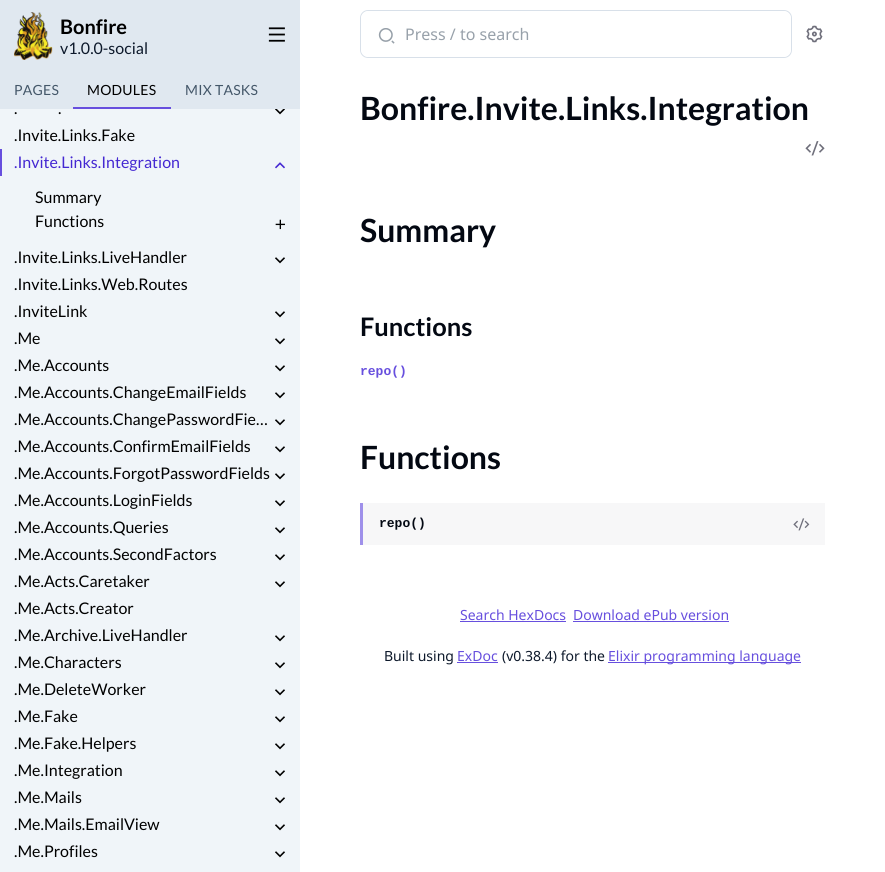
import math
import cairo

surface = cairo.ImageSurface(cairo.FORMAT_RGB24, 885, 872)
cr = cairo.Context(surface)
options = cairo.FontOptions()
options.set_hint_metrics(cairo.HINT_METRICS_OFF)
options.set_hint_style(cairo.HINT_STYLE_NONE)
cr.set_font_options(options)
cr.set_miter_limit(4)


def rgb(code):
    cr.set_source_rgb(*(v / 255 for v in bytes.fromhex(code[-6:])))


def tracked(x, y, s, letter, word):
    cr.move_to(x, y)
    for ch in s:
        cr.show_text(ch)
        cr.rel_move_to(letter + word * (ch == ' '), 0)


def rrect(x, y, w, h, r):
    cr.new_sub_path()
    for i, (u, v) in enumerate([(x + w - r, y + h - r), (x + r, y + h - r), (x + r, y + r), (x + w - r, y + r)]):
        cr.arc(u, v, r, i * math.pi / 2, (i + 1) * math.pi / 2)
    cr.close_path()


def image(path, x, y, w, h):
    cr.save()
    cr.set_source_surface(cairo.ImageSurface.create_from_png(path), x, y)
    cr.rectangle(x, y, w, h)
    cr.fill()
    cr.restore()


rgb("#ffffff")
cr.paint()
rgb("#f0f5f9")
cr.rectangle(0, 109, 300, 763)
cr.fill()
rgb("#e0e8f0")
cr.rectangle(0, 0, 300, 109)
cr.fill()
image("img/1.png", 14, 12, 39, 48)
rgb("#674fde")
cr.rectangle(73, 107, 98, 2)
cr.fill()
image("img/2.png", 275, 109, 10, 6)
cr.rectangle(0, 149, 2, 27)
cr.fill()
image("img/3.png", 275, 162, 10, 7)
image("img/4.png", 275, 219, 10, 11)
image("img/5.png", 275, 257, 10, 7)
image("img/5.png", 275, 311, 10, 7)
image("img/5.png", 275, 338, 10, 7)
image("img/5.png", 275, 365, 10, 7)
image("img/5.png", 275, 392, 10, 7)
image("img/5.png", 275, 419, 10, 7)
image("img/5.png", 275, 446, 10, 7)
image("img/5.png", 275, 473, 10, 7)
image("img/5.png", 275, 500, 10, 7)
image("img/5.png", 275, 527, 10, 7)
image("img/5.png", 275, 554, 10, 7)
image("img/5.png", 275, 581, 10, 7)
image("img/5.png", 275, 635, 10, 7)
image("img/5.png", 275, 662, 10, 7)
image("img/5.png", 275, 689, 10, 7)
image("img/5.png", 275, 716, 10, 7)
image("img/5.png", 275, 743, 10, 7)
image("img/5.png", 275, 770, 10, 7)
image("img/5.png", 275, 797, 10, 7)
image("img/5.png", 275, 824, 10, 7)
image("img/5.png", 275, 851, 10, 7)
image("img/6.png", 268, 27, 17, 15)
rrect(360.5, 10.5, 431, 47, 7.5)
rgb("#d8e0e9")
cr.set_line_width(1)
cr.stroke()
rgb("#ffffff")
rrect(361, 11, 430, 46, 8)
cr.fill()
image("img/7.png", 378, 28, 17, 16)
image("img/8.png", 806, 25, 17, 18)
image("img/9.png", 805, 141, 20, 15)
rgb("#f7f7f8")
cr.rectangle(363, 503, 462, 42)
cr.fill()
rgb("#9f90ea")
cr.rectangle(360, 503, 3, 42)
cr.fill()
image("img/10.png", 793, 518, 17, 13)
for x, y, w, h, color in [
    (460, 621, 106, 1, "#674fde"),
    (573, 621, 156, 1, "#674fde"),
    (457, 662, 41, 1, "#674fde"),
    (608, 662, 193, 1, "#674fde"),
]:
    rgb(color)
    cr.rectangle(x, y, w, h)
    cr.fill()
cr.select_font_face("Lato", cairo.FONT_SLANT_NORMAL, cairo.FONT_WEIGHT_BOLD)
cr.set_font_size(20)
rgb("#000000")
cr.move_to(60, 34)
cr.show_text("Bonfire")
cr.select_font_face("Lato")
cr.set_font_size(16)
rgb("#0d192b")
cr.move_to(60, 54)
cr.show_text("v1.0.0-social")
cr.set_font_size(14)
rgb("#445769")
tracked(14, 95, "PAGES", 0.25, 0)
rgb("#000000")
tracked(87, 95, "MODULES", 0.25, 0)
rgb("#445769")
tracked(185, 95, "MIX TASKS", 0.25, 0)
cr.set_font_size(16)
rgb("#000000")
for x, y, s in [
    (14, 114, "."),
    (58, 114, "."),
    (14, 141, ".Invite.Links.Fake"),
]:
    cr.move_to(x, y)
    cr.show_text(s)
rgb("#4428d2")
cr.move_to(14, 168)
cr.show_text(".Invite.Links.Integration")
rgb("#000000")
for x, y, s in [
    (35, 203, "Summary"),
    (35, 227, "Functions"),
    (14, 263, ".Invite.Links.LiveHandler"),
    (14, 290, ".Invite.Links.Web.Routes"),
    (14, 317, ".InviteLink"),
    (14, 344, ".Me"),
    (14, 371, ".Me.Accounts"),
    (14, 398, ".Me.Accounts.ChangeEmailFields"),
    (14, 425, ".Me.Accounts.ChangePasswordFie…"),
    (14, 452, ".Me.Accounts.ConfirmEmailFields"),
    (14, 479, ".Me.Accounts.ForgotPasswordFields"),
    (14, 506, ".Me.Accounts.LoginFields"),
    (14, 533, ".Me.Accounts.Queries"),
    (14, 560, ".Me.Accounts.SecondFactors"),
    (14, 587, ".Me.Acts.Caretaker"),
    (14, 614, ".Me.Acts.Creator"),
    (14, 641, ".Me.Archive.LiveHandler"),
    (14, 668, ".Me.Characters"),
    (14, 695, ".Me.DeleteWorker"),
    (14, 722, ".Me.Fake"),
    (14, 749, ".Me.Fake.Helpers"),
    (14, 776, ".Me.Integration"),
    (14, 803, ".Me.Mails"),
    (14, 830, ".Me.Mails.EmailView"),
    (14, 857, ".Me.Profiles"),
]:
    cr.move_to(x, y)
    cr.show_text(s)
cr.select_font_face("Noto Sans")
rgb("#98a1aa")
cr.move_to(405, 40)
cr.show_text("Press / to search")
cr.select_font_face("Lato", cairo.FONT_SLANT_NORMAL, cairo.FONT_WEIGHT_BOLD)
cr.set_font_size(32)
rgb("#030812")
cr.move_to(360, 120)
cr.show_text("Bonfire.Invite.Links.Integration")
cr.move_to(360, 242)
cr.show_text("Summary")
cr.set_font_size(25.5)
cr.move_to(360, 336)
cr.show_text("Functions")
cr.select_font_face("Liberation Mono", cairo.FONT_SLANT_NORMAL, cairo.FONT_WEIGHT_BOLD)
cr.set_font_size(13)
rgb("#674fde")
cr.move_to(360, 375)
cr.show_text("repo()")
cr.select_font_face("Lato", cairo.FONT_SLANT_NORMAL, cairo.FONT_WEIGHT_BOLD)
cr.set_font_size(32)
rgb("#030812")
cr.move_to(360, 469)
cr.show_text("Functions")
cr.select_font_face("Liberation Mono", cairo.FONT_SLANT_NORMAL, cairo.FONT_WEIGHT_BOLD)
cr.set_font_size(13)
cr.move_to(379, 527)
cr.show_text("repo()")
cr.select_font_face("Noto Sans")
cr.set_font_size(14)
rgb("#674fde")
cr.move_to(460, 620)
cr.show_text("Search HexDocs")
cr.move_to(573, 620)
cr.show_text("Download ePub version")
rgb("#0d192b")
cr.move_to(384, 661)
cr.show_text("Built using")
rgb("#674fde")
cr.move_to(457, 661)
cr.show_text("ExDoc")
rgb("#0d192b")
cr.move_to(502, 661)
cr.show_text("(v0.38.4) for the")
rgb("#674fde")
cr.move_to(608, 661)
cr.show_text("Elixir programming language")
surface.write_to_png("page.png")
